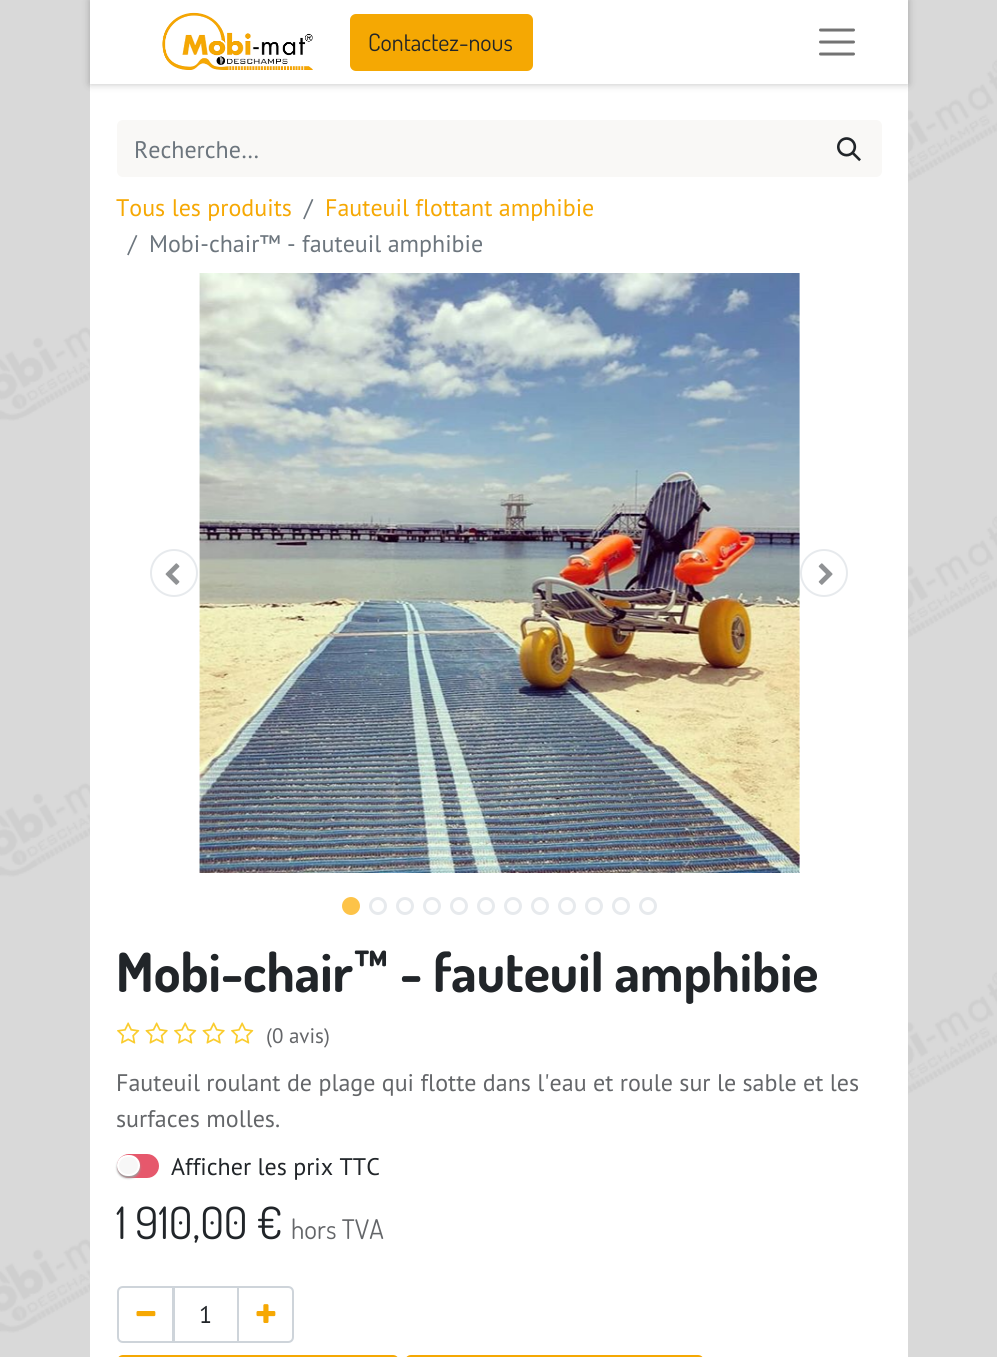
import math
import cairo

surface = cairo.ImageSurface(cairo.FORMAT_RGB24, 997, 1357)
cr = cairo.Context(surface)
options = cairo.FontOptions()
options.set_hint_metrics(cairo.HINT_METRICS_OFF)
options.set_hint_style(cairo.HINT_STYLE_NONE)
cr.set_font_options(options)
cr.set_miter_limit(4)


def rgb(code):
    cr.set_source_rgb(*(v / 255 for v in bytes.fromhex(code[-6:])))


def rrect(x, y, w, h, r):
    cr.new_sub_path()
    for i, (u, v) in enumerate([(x + w - r, y + h - r), (x + r, y + h - r), (x + r, y + r), (x + w - r, y + r)]):
        cr.arc(u, v, r, i * math.pi / 2, (i + 1) * math.pi / 2)
    cr.close_path()


def soft_shadow(x, y, w, h, r, blur, alpha):
    cr.push_group_with_content(cairo.CONTENT_ALPHA)
    cr.set_operator(cairo.OPERATOR_SOURCE)
    for i in range(15, -16, -2):
        e = blur * i / 6
        if min(w, h) + 2 * e > 0:
            cr.set_source_rgba(0, 0, 0, alpha * math.erfc((i - 1) / 8.5) / 2)
            rrect(x - e, y - e, w + 2 * e, h + 2 * e, max(0, min(r + e + blur * .6, min(w, h) / 2 + e)))
            cr.fill()
    cr.mask(cr.pop_group())


def image(path, x, y, w, h):
    cr.save()
    cr.set_source_surface(cairo.ImageSurface.create_from_png(path), x, y)
    cr.rectangle(x, y, w, h)
    cr.fill()
    cr.restore()


rgb("#ffffff")
cr.paint()
image("img/1.png", 0, 0, 997, 1357)
rgb("#ffffff")
cr.rectangle(90, 84, 818, 1273)
cr.fill()
rgb("#000000")
soft_shadow(90, 0, 818, 84, 0, 4, 0.25)
rgb("#ffffff")
cr.rectangle(90, 0, 818, 84)
cr.fill()
image("img/2.png", 162, 12, 151, 58)
rgb("#f5a803")
rrect(351, 15, 181, 55, 5)
cr.fill_preserve()
cr.stroke()
cr.new_path()
cr.move_to(820.5, 30)
cr.line_to(853.5, 30)
cr.move_to(820.5, 42)
cr.line_to(853.5, 42)
cr.move_to(820.5, 54)
cr.line_to(853.5, 54)
rgb("#737373")
cr.set_line_width(3)
cr.set_line_cap(cairo.LINE_CAP_ROUND)
cr.stroke()
rgb("#f9f8f6")
cr.new_path()
cr.move_to(123, 120)
cr.line_to(819, 120)
cr.line_to(819, 177)
cr.line_to(123, 177)
cr.curve_to(119.5, 177, 117, 174.5, 117, 171)
cr.line_to(117, 126)
cr.curve_to(117, 122.5, 119.5, 120, 123, 120)
cr.close_path()
cr.fill()
cr.new_path()
cr.move_to(818, 120)
cr.line_to(876, 120)
cr.curve_to(879.5, 120, 882, 122.5, 882, 126)
cr.line_to(882, 171)
cr.curve_to(882, 174.5, 879.5, 177, 876, 177)
cr.line_to(818, 177)
cr.close_path()
cr.fill()
image("img/3.png", 837, 137, 24, 25)
cr.arc(174, 573, 23, 0, 2 * math.pi)
rgb("#e7eaed")
cr.set_line_width(2)
cr.set_line_cap(cairo.LINE_CAP_BUTT)
cr.stroke()
image("img/4.png", 165, 563, 15, 22)
image("img/5.png", 199, 273, 601, 600)
cr.arc(824, 573, 23, 0, 2 * math.pi)
cr.stroke()
image("img/6.png", 818, 563, 15, 22)
rgb("#fdc348")
cr.arc(351, 906, 7.5, 0, 2 * math.pi)
cr.fill_preserve()
cr.set_line_width(3)
cr.stroke()
cr.arc(378, 906, 7.5, 0, 2 * math.pi)
rgb("#e7eaed")
cr.stroke()
cr.arc(405, 906, 7.5, 0, 2 * math.pi)
cr.stroke()
cr.arc(432, 906, 7.5, 0, 2 * math.pi)
cr.stroke()
cr.arc(459, 906, 7.5, 0, 2 * math.pi)
cr.stroke()
cr.arc(486, 906, 7.5, 0, 2 * math.pi)
cr.stroke()
cr.arc(513, 906, 7.5, 0, 2 * math.pi)
cr.stroke()
cr.arc(540, 906, 7.5, 0, 2 * math.pi)
cr.stroke()
cr.arc(567, 906, 7.5, 0, 2 * math.pi)
cr.stroke()
cr.arc(594, 906, 7.5, 0, 2 * math.pi)
cr.stroke()
cr.arc(621, 906, 7.5, 0, 2 * math.pi)
cr.stroke()
cr.arc(648, 906, 7.5, 0, 2 * math.pi)
cr.stroke()
image("img/7.png", 117, 1022, 23, 22)
image("img/8.png", 145, 1022, 23, 22)
image("img/7.png", 174, 1022, 23, 22)
image("img/8.png", 202, 1022, 23, 22)
image("img/7.png", 231, 1022, 23, 22)
rgb("#e6586c")
rrect(117, 1154, 42, 24, 12)
cr.fill()
rgb("#9e9e9e")
soft_shadow(117, 1157, 23, 21, 10.5, 1, 1)
rgb("#f7f7f7")
rrect(118, 1156, 21, 19, 9.5)
cr.fill_preserve()
rgb("#ffffff")
cr.set_line_width(2)
cr.stroke()
cr.rectangle(174, 1287, 64, 55)
rgb("#ced4da")
cr.stroke()
cr.new_path()
cr.move_to(123, 1287)
cr.line_to(173, 1287)
cr.line_to(173, 1342)
cr.line_to(123, 1342)
cr.curve_to(120, 1342, 118, 1340, 118, 1337)
cr.line_to(118, 1292)
cr.curve_to(118, 1289, 120, 1287, 123, 1287)
cr.close_path()
cr.stroke()
image("img/9.png", 136, 1311, 20, 6)
cr.new_path()
cr.move_to(238, 1287)
cr.line_to(288, 1287)
cr.curve_to(291, 1287, 293, 1289, 293, 1292)
cr.line_to(293, 1337)
cr.curve_to(293, 1340, 291, 1342, 288, 1342)
cr.line_to(238, 1342)
cr.close_path()
cr.stroke()
image("img/10.png", 256, 1304, 20, 19)
rrect(118, 1356, 280, 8, 5)
rgb("#f5a803")
cr.stroke()
rrect(406, 1356, 297, 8, 5)
cr.stroke()
cr.select_font_face("Dosis")
cr.set_font_size(24)
rgb("#212529")
cr.move_to(368, 51)
cr.show_text("Contactez-nous")
cr.select_font_face("PT Sans")
rgb("#6c757d")
cr.move_to(134, 158)
cr.show_text("Recherche…")
rgb("#f6a803")
cr.move_to(116, 216)
cr.show_text("Tous les produits")
rgb("#6c757d")
cr.move_to(304, 216)
cr.show_text("/")
rgb("#f6a803")
cr.move_to(325, 216)
cr.show_text("Fauteuil flottant amphibie")
rgb("#6c757d")
cr.move_to(128, 252)
cr.show_text("/")
cr.move_to(149, 252)
cr.show_text("Mobi-chair™ - fauteuil amphibie")
cr.select_font_face("Dosis", cairo.FONT_SLANT_NORMAL, cairo.FONT_WEIGHT_BOLD)
cr.set_font_size(54)
rgb("#212529")
cr.move_to(116, 992)
cr.show_text("Mobi-chair™ - fauteuil amphibie")
cr.select_font_face("PT Sans")
cr.set_font_size(21)
rgb("#646669")
cr.move_to(266, 1043)
cr.show_text("(0 avis)")
cr.set_font_size(24)
cr.move_to(116, 1091)
cr.show_text("Fauteuil roulant de plage qui flotte dans l'eau et roule sur le sable et les")
cr.move_to(116, 1127)
cr.show_text("surfaces molles.")
rgb("#212529")
cr.move_to(171, 1175)
cr.show_text("Afficher les prix TTC")
cr.select_font_face("Dosis")
cr.set_font_size(44.5)
cr.move_to(116, 1239)
cr.show_text("1 910,00 €")
cr.set_font_size(27)
rgb("#646669")
cr.move_to(291, 1239)
cr.show_text("hors TVA")
cr.select_font_face("PT Sans")
cr.set_font_size(24)
rgb("#212529")
cr.move_to(199, 1323)
cr.show_text("1")
surface.write_to_png("page.png")
